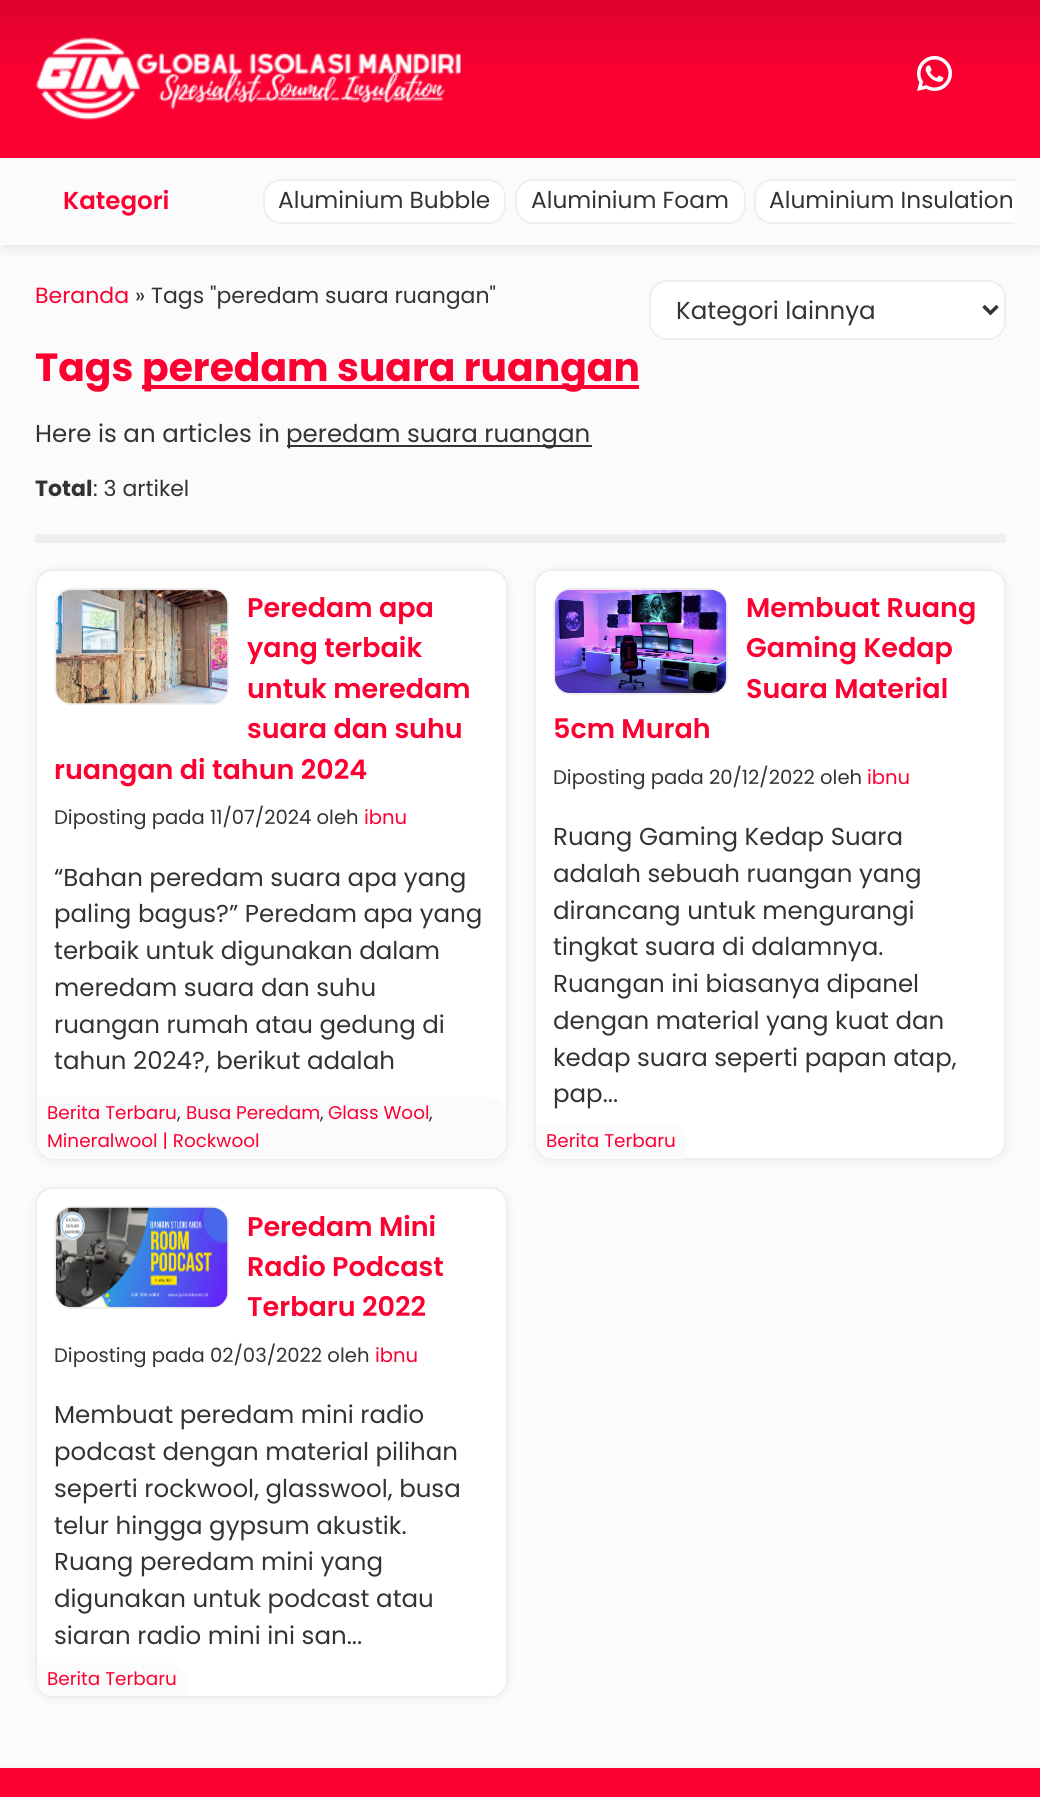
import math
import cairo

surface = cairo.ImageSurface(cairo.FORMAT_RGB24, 1040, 1797)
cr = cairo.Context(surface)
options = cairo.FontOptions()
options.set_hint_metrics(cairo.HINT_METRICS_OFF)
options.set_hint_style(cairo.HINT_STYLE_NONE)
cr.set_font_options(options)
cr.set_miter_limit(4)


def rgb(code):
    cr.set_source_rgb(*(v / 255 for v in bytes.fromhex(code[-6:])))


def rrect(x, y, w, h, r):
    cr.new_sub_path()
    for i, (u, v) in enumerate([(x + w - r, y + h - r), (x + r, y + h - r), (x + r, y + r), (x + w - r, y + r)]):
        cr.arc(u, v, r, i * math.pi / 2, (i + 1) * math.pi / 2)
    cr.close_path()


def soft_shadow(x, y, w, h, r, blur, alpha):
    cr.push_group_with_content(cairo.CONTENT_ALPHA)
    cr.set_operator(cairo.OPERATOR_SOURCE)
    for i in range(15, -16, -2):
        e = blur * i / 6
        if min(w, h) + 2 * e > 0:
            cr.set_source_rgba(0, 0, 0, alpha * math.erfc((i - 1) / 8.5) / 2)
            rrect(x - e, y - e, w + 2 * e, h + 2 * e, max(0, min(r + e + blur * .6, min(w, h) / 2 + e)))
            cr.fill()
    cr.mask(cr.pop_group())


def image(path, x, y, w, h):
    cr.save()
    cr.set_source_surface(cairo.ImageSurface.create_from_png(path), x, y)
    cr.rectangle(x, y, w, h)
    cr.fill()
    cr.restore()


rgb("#fbfbfb")
cr.paint()
rgb("#000000")
soft_shadow(2, 9, 1038, 241, 0, 5, 0.07)
rgb("#fbfbfb")
cr.rectangle(0, 158, 1040, 87)
cr.fill()
gradient = cairo.LinearGradient(521, 0, 521, 158)
gradient.add_color_stop_rgba(0, 0.871, 0.008, 0.176, 1)
gradient.add_color_stop_rgba(0.5, 0.988, 0, 0.196, 1)
gradient.add_color_stop_rgba(1, 0.988, 0, 0.196, 1)
cr.set_source(gradient)
cr.rectangle(0, 0, 1040, 158)
cr.fill()
image("img/1.png", 36, 37, 425, 83)
image("img/2.png", 917, 56, 35, 35)
rgb("#ffffff")
rrect(264, 180, 241, 43, 17)
cr.fill_preserve()
rgb("#efefef")
cr.stroke()
rgb("#ffffff")
rrect(516, 180, 229, 43, 17)
cr.fill_preserve()
rgb("#efefef")
cr.stroke()
cr.save()
cr.rectangle(254, 158, 761, 87)
cr.clip()
rgb("#ffffff")
rrect(755, 180, 273, 43, 17)
cr.fill_preserve()
rgb("#efefef")
cr.stroke()
cr.restore()
cr.rectangle(35, 534, 971, 9)
cr.fill()
rgb("#ffffff")
rrect(650, 281, 355, 58, 17)
cr.fill_preserve()
rgb("#efefef")
cr.stroke()
cr.new_path()
cr.move_to(983.5, 306)
cr.line_to(990.5, 313)
cr.line_to(997.5, 306)
rgb("#333333")
cr.set_line_width(3.5)
cr.stroke()
rgb("#fc0032")
cr.rectangle(142, 385, 497, 4)
cr.fill()
rgb("#333333")
cr.rectangle(287, 445, 305, 2)
cr.fill()
rgb("#000000")
soft_shadow(35, 571, 473, 591, 18, 5, 0.05)
rgb("#ffffff")
rrect(36, 570, 471, 589, 17)
cr.fill_preserve()
rgb("#efefef")
cr.set_line_width(2)
cr.stroke()
rrect(55, 589, 173, 115, 17)
cr.stroke()
image("img/3.png", 56, 589, 172, 115)
cr.save()
rrect(37, 571, 469, 588, 16)
cr.clip()
rgb("#fbfbfb")
cr.new_path()
cr.move_to(37, 1097)
cr.line_to(488, 1097)
cr.curve_to(498, 1097, 506, 1105, 506, 1115)
cr.line_to(506, 1143)
cr.curve_to(506, 1152, 499, 1159, 490, 1159)
cr.line_to(55, 1159)
cr.curve_to(45, 1159, 37, 1151, 37, 1141)
cr.close_path()
cr.fill()
cr.restore()
rgb("#000000")
soft_shadow(534, 571, 472, 591, 18, 5, 0.05)
rgb("#ffffff")
rrect(535, 570, 470, 589, 17)
cr.fill_preserve()
rgb("#efefef")
cr.stroke()
rrect(554, 589, 173, 105, 17)
cr.stroke()
image("img/4.png", 554, 589, 173, 104)
cr.save()
rrect(536, 571, 469, 588, 16)
cr.clip()
rgb("#fbfbfb")
cr.new_path()
cr.move_to(536, 1124)
cr.line_to(668.5, 1124)
cr.curve_to(678, 1124, 686, 1132, 686, 1141.5)
cr.line_to(686, 1159)
cr.line_to(553.5, 1159)
cr.curve_to(544, 1159, 536, 1151, 536, 1141.5)
cr.close_path()
cr.fill()
cr.restore()
rgb("#000000")
soft_shadow(35, 1188, 473, 511, 18, 5, 0.05)
rgb("#ffffff")
rrect(36, 1188, 471, 509, 17)
cr.fill_preserve()
rgb("#efefef")
cr.stroke()
rrect(55, 1207, 173, 101, 17)
cr.stroke()
image("img/5.png", 56, 1207, 172, 101)
rgb("#fbfbfb")
cr.new_path()
cr.move_to(37, 1663)
cr.line_to(169, 1663)
cr.curve_to(179, 1663, 187, 1671, 187, 1681)
cr.line_to(187, 1696)
cr.line_to(55, 1696)
cr.curve_to(45, 1696, 37, 1688, 37, 1678)
cr.close_path()
cr.fill()
rgb("#000000")
soft_shadow(0, 1769, 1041, 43, 0, 5, 0.07)
rgb("#fc0032")
cr.rectangle(0, 1768, 1040, 29)
cr.fill()
cr.select_font_face("Poppins SemiBold")
cr.set_font_size(24.5)
cr.move_to(63, 209)
cr.show_text("Kategori")
cr.select_font_face("Poppins")
cr.set_font_size(23.25)
rgb("#333333")
for x, y, s in [
    (278, 208, "Aluminium Bubble"),
    (531, 208, "Aluminium Foam"),
    (769, 208, "Aluminium Insulation"),
]:
    cr.move_to(x, y)
    cr.show_text(s)
cr.set_font_size(22)
rgb("#fc0032")
cr.move_to(35, 303)
cr.show_text("Beranda")
rgb("#333333")
cr.move_to(135, 303)
cr.show_text("» Tags \"peredam suara ruangan\"")
cr.set_font_size(24.5)
cr.move_to(676, 319)
cr.show_text("Kategori lainnya")
cr.select_font_face("Poppins", cairo.FONT_SLANT_NORMAL, cairo.FONT_WEIGHT_BOLD)
cr.set_font_size(39.25)
rgb("#fc0032")
cr.move_to(35, 381)
cr.show_text("Tags")
cr.move_to(142, 381)
cr.show_text("peredam suara ruangan")
cr.select_font_face("Poppins")
cr.set_font_size(24.5)
rgb("#333333")
cr.move_to(35, 442)
cr.show_text("Here is an articles in")
cr.move_to(286, 442)
cr.show_text("peredam suara ruangan")
cr.select_font_face("Poppins", cairo.FONT_SLANT_NORMAL, cairo.FONT_WEIGHT_BOLD)
cr.set_font_size(22)
cr.move_to(35, 496)
cr.show_text("Total")
cr.select_font_face("Poppins")
cr.move_to(93, 496)
cr.show_text(": 3 artikel")
cr.select_font_face("Poppins SemiBold")
cr.set_font_size(27)
rgb("#fc0032")
for x, y, s in [
    (247, 617, "Peredam apa"),
    (247, 657, "yang terbaik"),
    (247, 698, "untuk meredam"),
    (247, 738, "suara dan suhu"),
    (54, 779, "ruangan di tahun 2024"),
]:
    cr.move_to(x, y)
    cr.show_text(s)
cr.select_font_face("Poppins")
cr.set_font_size(19.6)
rgb("#333333")
cr.move_to(54, 824)
cr.show_text("Diposting pada 11/07/2024 oleh")
rgb("#fc0032")
cr.move_to(364, 824)
cr.show_text("ibnu")
cr.set_font_size(24.5)
rgb("#333333")
for x, y, s in [
    (54, 886, "“Bahan peredam suara apa yang"),
    (54, 922, "paling bagus?” Peredam apa yang"),
    (54, 959, "terbaik untuk digunakan dalam"),
    (54, 996, "meredam suara dan suhu"),
    (54, 1033, "ruangan rumah atau gedung di"),
    (54, 1069, "tahun 2024?, berikut adalah"),
]:
    cr.move_to(x, y)
    cr.show_text(s)
cr.set_font_size(18.4)
rgb("#fc0032")
cr.move_to(47, 1119)
cr.show_text("Berita Terbaru")
rgb("#333333")
cr.move_to(177, 1119)
cr.show_text(",")
rgb("#fc0032")
cr.move_to(186, 1119)
cr.show_text("Busa Peredam")
rgb("#333333")
cr.move_to(320, 1119)
cr.show_text(",")
rgb("#fc0032")
cr.move_to(328, 1119)
cr.show_text("Glass Wool")
rgb("#333333")
cr.move_to(429, 1119)
cr.show_text(",")
rgb("#fc0032")
cr.move_to(47, 1147)
cr.show_text("Mineralwool | Rockwool")
cr.select_font_face("Poppins SemiBold")
cr.set_font_size(27)
for x, y, s in [
    (746, 617, "Membuat Ruang"),
    (746, 657, "Gaming Kedap"),
    (746, 698, "Suara Material"),
    (553, 738, "5cm Murah"),
]:
    cr.move_to(x, y)
    cr.show_text(s)
cr.select_font_face("Poppins")
cr.set_font_size(19.6)
rgb("#333333")
cr.move_to(553, 784)
cr.show_text("Diposting pada 20/12/2022 oleh")
rgb("#fc0032")
cr.move_to(867, 784)
cr.show_text("ibnu")
cr.set_font_size(24.5)
rgb("#333333")
for x, y, s in [
    (553, 845, "Ruang Gaming Kedap Suara"),
    (553, 882, "adalah sebuah ruangan yang"),
    (553, 919, "dirancang untuk mengurangi"),
    (553, 955, "tingkat suara di dalamnya."),
    (553, 992, "Ruangan ini biasanya dipanel"),
    (553, 1029, "dengan material yang kuat dan"),
    (553, 1066, "kedap suara seperti papan atap,"),
    (553, 1102, "pap..."),
]:
    cr.move_to(x, y)
    cr.show_text(s)
cr.set_font_size(18.4)
rgb("#fc0032")
cr.move_to(546, 1147)
cr.show_text("Berita Terbaru")
cr.select_font_face("Poppins SemiBold")
cr.set_font_size(27)
for x, y, s in [
    (247, 1236, "Peredam Mini"),
    (247, 1276, "Radio Podcast"),
    (247, 1316, "Terbaru 2022"),
]:
    cr.move_to(x, y)
    cr.show_text(s)
cr.select_font_face("Poppins")
cr.set_font_size(19.6)
rgb("#333333")
cr.move_to(54, 1362)
cr.show_text("Diposting pada 02/03/2022 oleh")
rgb("#fc0032")
cr.move_to(375, 1362)
cr.show_text("ibnu")
cr.set_font_size(24.5)
rgb("#333333")
for x, y, s in [
    (54, 1423, "Membuat peredam mini radio"),
    (54, 1460, "podcast dengan material pilihan"),
    (54, 1497, "seperti rockwool, glasswool, busa"),
    (54, 1534, "telur hingga gypsum akustik."),
    (54, 1570, "Ruang peredam mini yang"),
    (54, 1607, "digunakan untuk podcast atau"),
    (54, 1644, "siaran radio mini ini san..."),
]:
    cr.move_to(x, y)
    cr.show_text(s)
cr.set_font_size(18.4)
rgb("#fc0032")
cr.move_to(47, 1685)
cr.show_text("Berita Terbaru")
surface.write_to_png("page.png")
